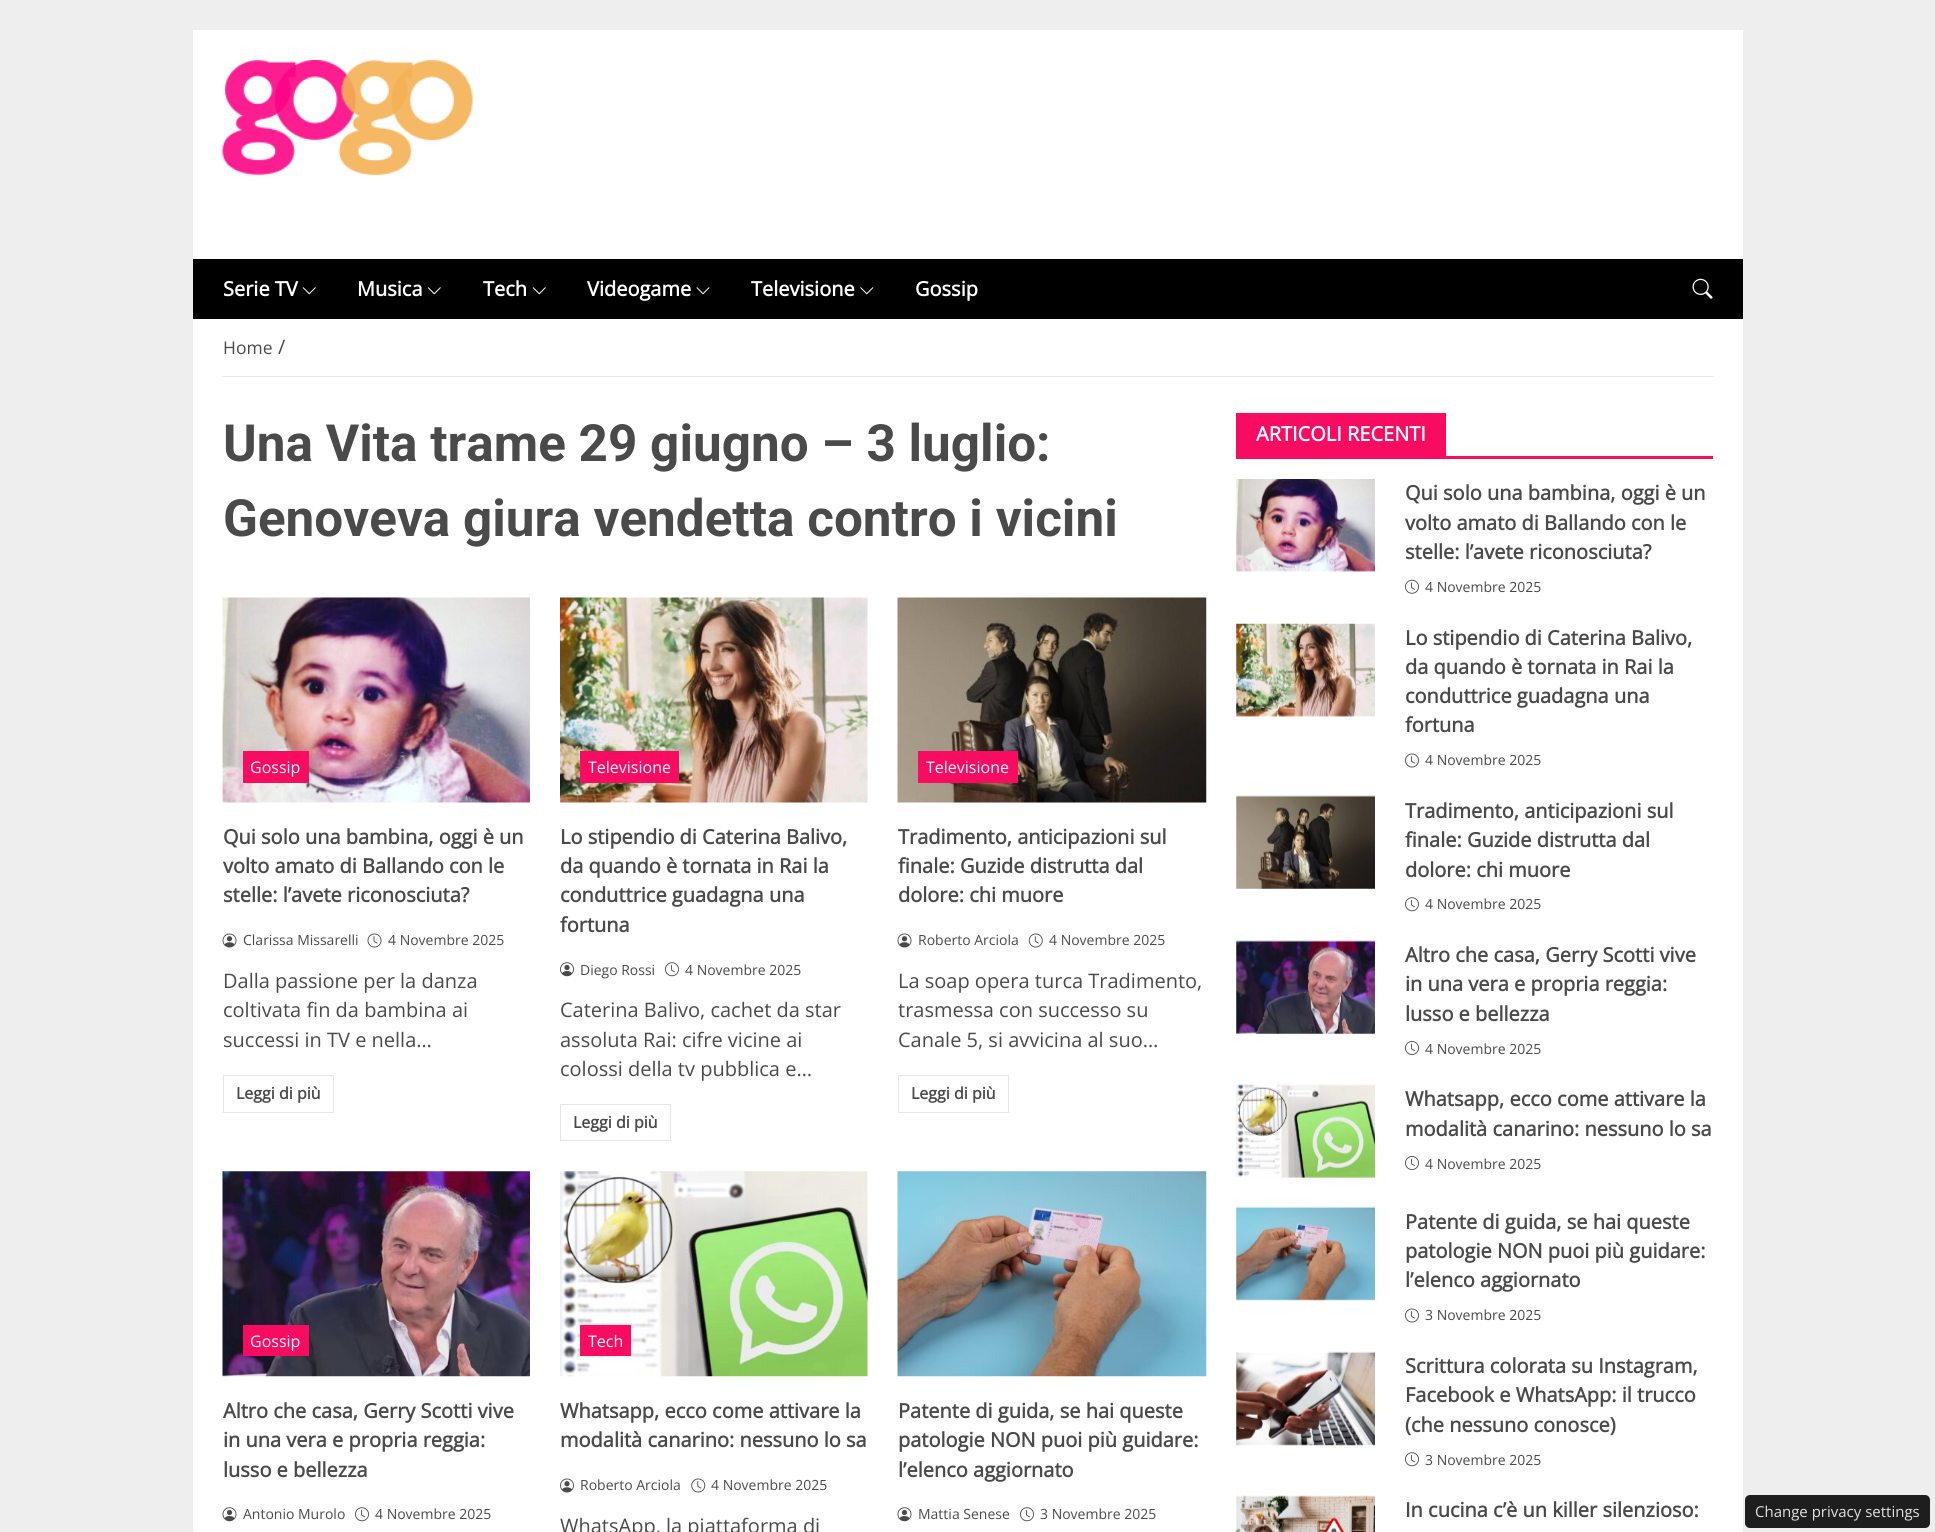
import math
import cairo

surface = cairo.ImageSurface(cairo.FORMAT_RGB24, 1935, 1532)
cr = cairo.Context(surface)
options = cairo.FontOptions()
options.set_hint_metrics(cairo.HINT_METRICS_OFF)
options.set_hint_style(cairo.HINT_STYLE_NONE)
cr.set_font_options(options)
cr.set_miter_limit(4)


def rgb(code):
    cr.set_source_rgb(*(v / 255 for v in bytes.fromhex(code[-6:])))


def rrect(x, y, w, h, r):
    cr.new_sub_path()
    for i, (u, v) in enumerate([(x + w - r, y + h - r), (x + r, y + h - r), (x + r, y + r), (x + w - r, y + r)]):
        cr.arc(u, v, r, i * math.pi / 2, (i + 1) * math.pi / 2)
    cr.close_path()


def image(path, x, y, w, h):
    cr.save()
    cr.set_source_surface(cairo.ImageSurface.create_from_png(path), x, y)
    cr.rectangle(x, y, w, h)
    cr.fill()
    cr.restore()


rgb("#eeeeee")
cr.paint()
rgb("#ffffff")
cr.rectangle(193, 30, 1550, 229)
cr.fill()
image("img/1.png", 222, 60, 251, 116)
rgb("#000000")
cr.rectangle(193, 259, 1550, 60)
cr.fill()
image("img/2.png", 302, 287, 14, 8)
image("img/2.png", 427, 287, 14, 8)
image("img/2.png", 532, 287, 14, 8)
image("img/3.png", 696, 287, 14, 8)
image("img/4.png", 860, 287, 14, 8)
image("img/5.png", 1692, 278, 21, 21)
rgb("#ffffff")
cr.rectangle(193, 319, 1550, 1213)
cr.fill()
rgb("#e6e6e6")
cr.rectangle(223, 376, 1490, 1)
cr.fill()
image("img/6.png", 222, 597, 308, 206)
rgb("#f70c62")
cr.rectangle(243, 751, 66, 32)
cr.fill()
image("img/7.png", 222, 933, 15, 15)
image("img/8.png", 367, 933, 15, 15)
cr.rectangle(223.5, 1075.5, 110, 37)
rgb("#e6e6e6")
cr.set_line_width(1)
cr.stroke()
image("img/9.png", 560, 597, 308, 206)
rgb("#f70c62")
cr.rectangle(580, 751, 99, 32)
cr.fill()
image("img/10.png", 560, 962, 14, 15)
image("img/11.png", 665, 962, 14, 15)
cr.rectangle(560.5, 1104.5, 110, 36)
rgb("#e6e6e6")
cr.stroke()
image("img/12.png", 897, 597, 310, 206)
rgb("#f70c62")
cr.rectangle(918, 751, 100, 32)
cr.fill()
image("img/7.png", 897, 933, 15, 15)
image("img/13.png", 1028, 933, 15, 15)
cr.rectangle(898.5, 1075.5, 110, 37)
rgb("#e6e6e6")
cr.stroke()
image("img/14.png", 222, 1171, 308, 206)
rgb("#f70c62")
cr.rectangle(243, 1325, 66, 31)
cr.fill()
image("img/15.png", 222, 1507, 15, 15)
image("img/11.png", 355, 1507, 14, 15)
image("img/16.png", 560, 1171, 308, 206)
cr.rectangle(580, 1325, 51, 31)
cr.fill()
image("img/17.png", 560, 1478, 14, 15)
image("img/18.png", 691, 1478, 15, 15)
image("img/19.png", 897, 1171, 310, 206)
image("img/15.png", 897, 1507, 15, 15)
image("img/11.png", 1020, 1507, 14, 15)
cr.rectangle(1236, 456, 477, 3)
cr.fill()
cr.rectangle(1236, 413, 210, 43)
cr.fill()
image("img/20.png", 1236, 479, 139, 93)
image("img/21.png", 1405, 579, 14, 15)
image("img/22.png", 1236, 623, 139, 94)
image("img/23.png", 1405, 753, 14, 15)
image("img/24.png", 1236, 795, 139, 94)
image("img/11.png", 1405, 897, 14, 15)
image("img/25.png", 1236, 940, 139, 94)
image("img/26.png", 1405, 1041, 14, 14)
image("img/27.png", 1236, 1084, 139, 94)
image("img/26.png", 1405, 1156, 14, 14)
image("img/28.png", 1236, 1206, 139, 95)
image("img/23.png", 1405, 1308, 14, 15)
image("img/29.png", 1236, 1351, 139, 95)
image("img/11.png", 1405, 1452, 14, 15)
image("img/30.png", 1236, 1495, 139, 37)
rgb("#1e1e1e")
rrect(1745, 1495, 185, 33, 5)
cr.fill()
cr.select_font_face("Open Sans", cairo.FONT_SLANT_NORMAL, cairo.FONT_WEIGHT_BOLD)
cr.set_font_size(20)
rgb("#ffffff")
for x, y, s in [
    (223, 296, "Serie TV"),
    (357, 296, "Musica"),
    (483, 296, "Tech"),
    (587, 296, "Videogame"),
    (751, 296, "Televisione"),
    (915, 296, "Gossip"),
]:
    cr.move_to(x, y)
    cr.show_text(s)
cr.select_font_face("Open Sans")
cr.set_font_size(17.5)
rgb("#4a4a4a")
cr.move_to(223, 354)
cr.show_text("Home")
cr.set_font_size(20)
cr.move_to(278, 354)
cr.show_text("/")
cr.select_font_face("Roboto", cairo.FONT_SLANT_NORMAL, cairo.FONT_WEIGHT_BOLD)
cr.set_font_size(51.25)
cr.move_to(223, 461)
cr.show_text("Una Vita trame 29 giugno – 3 luglio:")
cr.move_to(223, 536)
cr.show_text("Genoveva giura vendetta contro i vicini")
cr.select_font_face("Open Sans")
cr.set_font_size(16)
rgb("#ffffff")
cr.move_to(250, 773)
cr.show_text("Gossip")
cr.select_font_face("Open Sans", cairo.FONT_SLANT_NORMAL, cairo.FONT_WEIGHT_BOLD)
cr.set_font_size(20)
rgb("#4a4a4a")
for x, y, s in [
    (223, 844, "Qui solo una bambina, oggi è un"),
    (223, 873, "volto amato di Ballando con le"),
    (223, 902, "stelle: l’avete riconosciuta?"),
]:
    cr.move_to(x, y)
    cr.show_text(s)
cr.select_font_face("Open Sans")
cr.set_font_size(14)
cr.move_to(243, 945)
cr.show_text("Clarissa Missarelli")
cr.move_to(388, 945)
cr.show_text("4 Novembre 2025")
cr.set_font_size(20)
for x, y, s in [
    (223, 988, "Dalla passione per la danza"),
    (223, 1017, "coltivata fin da bambina ai"),
    (223, 1047, "successi in TV e nella…"),
]:
    cr.move_to(x, y)
    cr.show_text(s)
cr.select_font_face("Open Sans", cairo.FONT_SLANT_NORMAL, cairo.FONT_WEIGHT_BOLD)
cr.set_font_size(16)
cr.move_to(236, 1099)
cr.show_text("Leggi di più")
cr.select_font_face("Open Sans")
rgb("#ffffff")
cr.move_to(588, 773)
cr.show_text("Televisione")
cr.select_font_face("Open Sans", cairo.FONT_SLANT_NORMAL, cairo.FONT_WEIGHT_BOLD)
cr.set_font_size(20)
rgb("#4a4a4a")
for x, y, s in [
    (560, 844, "Lo stipendio di Caterina Balivo,"),
    (560, 873, "da quando è tornata in Rai la"),
    (560, 902, "conduttrice guadagna una"),
    (560, 932, "fortuna"),
]:
    cr.move_to(x, y)
    cr.show_text(s)
cr.select_font_face("Open Sans")
cr.set_font_size(14)
cr.move_to(580, 975)
cr.show_text("Diego Rossi")
cr.move_to(685, 975)
cr.show_text("4 Novembre 2025")
cr.set_font_size(20)
for x, y, s in [
    (560, 1017, "Caterina Balivo, cachet da star"),
    (560, 1047, "assoluta Rai: cifre vicine ai"),
    (560, 1076, "colossi della tv pubblica e…"),
]:
    cr.move_to(x, y)
    cr.show_text(s)
cr.select_font_face("Open Sans", cairo.FONT_SLANT_NORMAL, cairo.FONT_WEIGHT_BOLD)
cr.set_font_size(16)
cr.move_to(573, 1128)
cr.show_text("Leggi di più")
cr.select_font_face("Open Sans")
rgb("#ffffff")
cr.move_to(926, 773)
cr.show_text("Televisione")
cr.select_font_face("Open Sans", cairo.FONT_SLANT_NORMAL, cairo.FONT_WEIGHT_BOLD)
cr.set_font_size(20)
rgb("#4a4a4a")
for x, y, s in [
    (898, 844, "Tradimento, anticipazioni sul"),
    (898, 873, "finale: Guzide distrutta dal"),
    (898, 902, "dolore: chi muore"),
]:
    cr.move_to(x, y)
    cr.show_text(s)
cr.select_font_face("Open Sans")
cr.set_font_size(14)
cr.move_to(918, 945)
cr.show_text("Roberto Arciola")
cr.move_to(1049, 945)
cr.show_text("4 Novembre 2025")
cr.set_font_size(20)
for x, y, s in [
    (898, 988, "La soap opera turca Tradimento,"),
    (898, 1017, "trasmessa con successo su"),
    (898, 1047, "Canale 5, si avvicina al suo…"),
]:
    cr.move_to(x, y)
    cr.show_text(s)
cr.select_font_face("Open Sans", cairo.FONT_SLANT_NORMAL, cairo.FONT_WEIGHT_BOLD)
cr.set_font_size(16)
cr.move_to(911, 1099)
cr.show_text("Leggi di più")
cr.select_font_face("Open Sans")
rgb("#ffffff")
cr.move_to(250, 1347)
cr.show_text("Gossip")
cr.select_font_face("Open Sans", cairo.FONT_SLANT_NORMAL, cairo.FONT_WEIGHT_BOLD)
cr.set_font_size(20)
rgb("#4a4a4a")
for x, y, s in [
    (223, 1418, "Altro che casa, Gerry Scotti vive"),
    (223, 1447, "in una vera e propria reggia:"),
    (223, 1477, "lusso e bellezza"),
]:
    cr.move_to(x, y)
    cr.show_text(s)
cr.select_font_face("Open Sans")
cr.set_font_size(14)
cr.move_to(243, 1519)
cr.show_text("Antonio Murolo")
cr.move_to(375, 1519)
cr.show_text("4 Novembre 2025")
cr.set_font_size(16)
rgb("#ffffff")
cr.move_to(588, 1347)
cr.show_text("Tech")
cr.select_font_face("Open Sans", cairo.FONT_SLANT_NORMAL, cairo.FONT_WEIGHT_BOLD)
cr.set_font_size(20)
rgb("#4a4a4a")
cr.move_to(560, 1418)
cr.show_text("Whatsapp, ecco come attivare la")
cr.move_to(560, 1447)
cr.show_text("modalità canarino: nessuno lo sa")
cr.select_font_face("Open Sans")
cr.set_font_size(14)
cr.move_to(580, 1490)
cr.show_text("Roberto Arciola")
cr.move_to(711, 1490)
cr.show_text("4 Novembre 2025")
cr.set_font_size(20)
cr.move_to(560, 1533)
cr.show_text("WhatsApp, la piattaforma di")
cr.select_font_face("Open Sans", cairo.FONT_SLANT_NORMAL, cairo.FONT_WEIGHT_BOLD)
for x, y, s in [
    (898, 1418, "Patente di guida, se hai queste"),
    (898, 1447, "patologie NON puoi più guidare:"),
    (898, 1477, "l’elenco aggiornato"),
]:
    cr.move_to(x, y)
    cr.show_text(s)
cr.select_font_face("Open Sans")
cr.set_font_size(14)
cr.move_to(918, 1519)
cr.show_text("Mattia Senese")
cr.move_to(1040, 1519)
cr.show_text("3 Novembre 2025")
cr.select_font_face("Open Sans", cairo.FONT_SLANT_NORMAL, cairo.FONT_WEIGHT_BOLD)
cr.set_font_size(20)
rgb("#ffffff")
cr.move_to(1256, 441)
cr.show_text("ARTICOLI RECENTI")
rgb("#4a4a4a")
for x, y, s in [
    (1405, 500, "Qui solo una bambina, oggi è un"),
    (1405, 530, "volto amato di Ballando con le"),
    (1405, 559, "stelle: l’avete riconosciuta?"),
]:
    cr.move_to(x, y)
    cr.show_text(s)
cr.select_font_face("Open Sans")
cr.set_font_size(14)
cr.move_to(1425, 592)
cr.show_text("4 Novembre 2025")
cr.select_font_face("Open Sans", cairo.FONT_SLANT_NORMAL, cairo.FONT_WEIGHT_BOLD)
cr.set_font_size(20)
for x, y, s in [
    (1405, 645, "Lo stipendio di Caterina Balivo,"),
    (1405, 674, "da quando è tornata in Rai la"),
    (1405, 703, "conduttrice guadagna una"),
    (1405, 732, "fortuna"),
]:
    cr.move_to(x, y)
    cr.show_text(s)
cr.select_font_face("Open Sans")
cr.set_font_size(14)
cr.move_to(1425, 765)
cr.show_text("4 Novembre 2025")
cr.select_font_face("Open Sans", cairo.FONT_SLANT_NORMAL, cairo.FONT_WEIGHT_BOLD)
cr.set_font_size(20)
for x, y, s in [
    (1405, 818, "Tradimento, anticipazioni sul"),
    (1405, 847, "finale: Guzide distrutta dal"),
    (1405, 877, "dolore: chi muore"),
]:
    cr.move_to(x, y)
    cr.show_text(s)
cr.select_font_face("Open Sans")
cr.set_font_size(14)
cr.move_to(1425, 909)
cr.show_text("4 Novembre 2025")
cr.select_font_face("Open Sans", cairo.FONT_SLANT_NORMAL, cairo.FONT_WEIGHT_BOLD)
cr.set_font_size(20)
for x, y, s in [
    (1405, 962, "Altro che casa, Gerry Scotti vive"),
    (1405, 991, "in una vera e propria reggia:"),
    (1405, 1021, "lusso e bellezza"),
]:
    cr.move_to(x, y)
    cr.show_text(s)
cr.select_font_face("Open Sans")
cr.set_font_size(14)
cr.move_to(1425, 1054)
cr.show_text("4 Novembre 2025")
cr.select_font_face("Open Sans", cairo.FONT_SLANT_NORMAL, cairo.FONT_WEIGHT_BOLD)
cr.set_font_size(20)
cr.move_to(1405, 1106)
cr.show_text("Whatsapp, ecco come attivare la")
cr.move_to(1405, 1136)
cr.show_text("modalità canarino: nessuno lo sa")
cr.select_font_face("Open Sans")
cr.set_font_size(14)
cr.move_to(1425, 1169)
cr.show_text("4 Novembre 2025")
cr.select_font_face("Open Sans", cairo.FONT_SLANT_NORMAL, cairo.FONT_WEIGHT_BOLD)
cr.set_font_size(20)
for x, y, s in [
    (1405, 1229, "Patente di guida, se hai queste"),
    (1405, 1258, "patologie NON puoi più guidare:"),
    (1405, 1287, "l’elenco aggiornato"),
]:
    cr.move_to(x, y)
    cr.show_text(s)
cr.select_font_face("Open Sans")
cr.set_font_size(14)
cr.move_to(1425, 1320)
cr.show_text("3 Novembre 2025")
cr.select_font_face("Open Sans", cairo.FONT_SLANT_NORMAL, cairo.FONT_WEIGHT_BOLD)
cr.set_font_size(20)
for x, y, s in [
    (1405, 1373, "Scrittura colorata su Instagram,"),
    (1405, 1402, "Facebook e WhatsApp: il trucco"),
    (1405, 1432, "(che nessuno conosce)"),
]:
    cr.move_to(x, y)
    cr.show_text(s)
cr.select_font_face("Open Sans")
cr.set_font_size(14)
cr.move_to(1425, 1465)
cr.show_text("3 Novembre 2025")
cr.select_font_face("Open Sans", cairo.FONT_SLANT_NORMAL, cairo.FONT_WEIGHT_BOLD)
cr.set_font_size(20)
cr.move_to(1405, 1517)
cr.show_text("In cucina c’è un killer silenzioso:")
cr.select_font_face("Open Sans")
cr.set_font_size(15)
rgb("#e3e1e1")
cr.move_to(1755, 1517)
cr.show_text("Change privacy settings")
surface.write_to_png("page.png")
